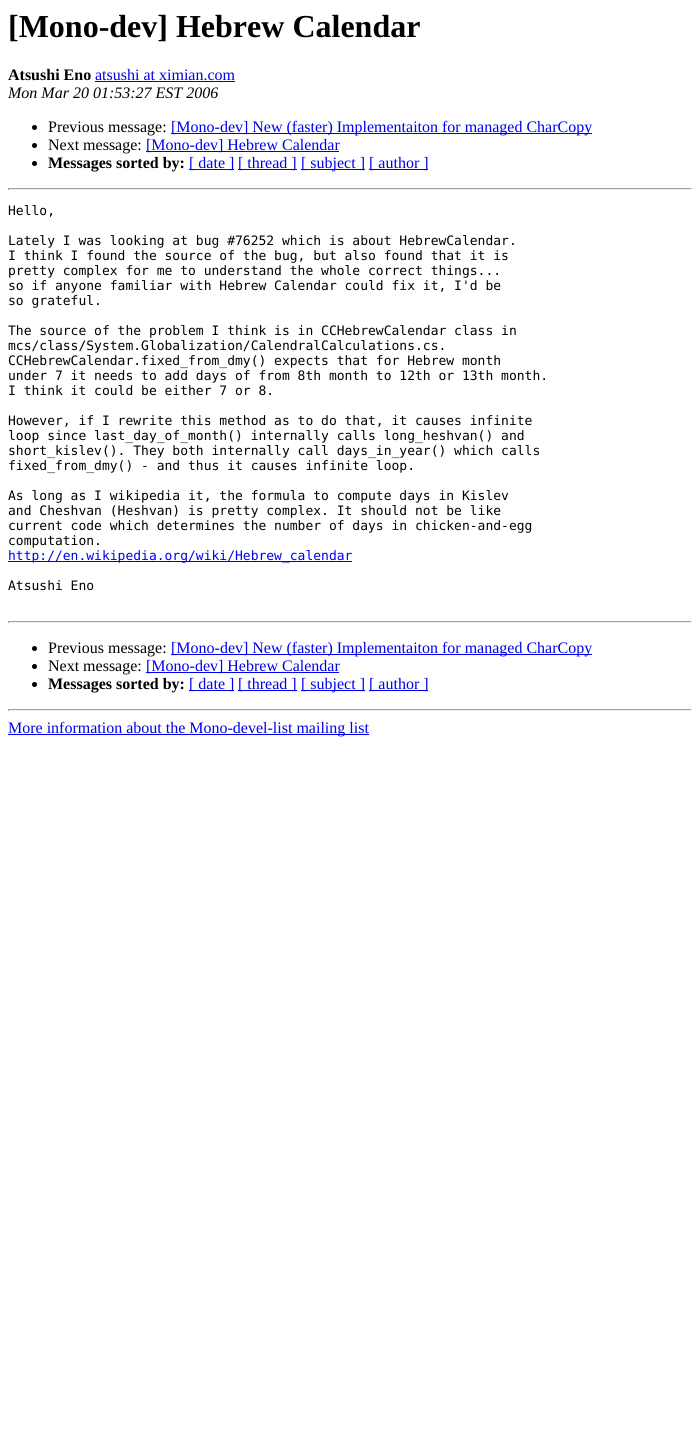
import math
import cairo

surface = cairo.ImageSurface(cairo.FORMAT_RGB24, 700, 1447)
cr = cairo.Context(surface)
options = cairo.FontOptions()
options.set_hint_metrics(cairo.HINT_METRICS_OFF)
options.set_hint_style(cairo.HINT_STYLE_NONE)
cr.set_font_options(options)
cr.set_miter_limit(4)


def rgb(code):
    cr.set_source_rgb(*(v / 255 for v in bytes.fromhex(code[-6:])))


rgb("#ffffff")
cr.paint()
rgb("#0000ee")
cr.rectangle(95, 81, 140, 1)
cr.fill()
rgb("#000000")
cr.arc(34.5, 127.5, 2.5, 0, 2 * math.pi)
cr.fill()
rgb("#0000ee")
cr.rectangle(171, 133, 421, 1)
cr.fill()
rgb("#000000")
cr.arc(34.5, 145.5, 2.5, 0, 2 * math.pi)
cr.fill()
rgb("#0000ee")
cr.rectangle(146, 151, 193, 1)
cr.fill()
rgb("#000000")
cr.arc(34.5, 163.5, 2.5, 0, 2 * math.pi)
cr.fill()
for x, y, w, h, color in [
    (189, 169, 45, 1, "#0000ee"),
    (238, 169, 59, 1, "#0000ee"),
    (301, 169, 64, 1, "#0000ee"),
    (369, 169, 59, 1, "#0000ee"),
    (8, 188, 684, 1, "#9f9f9f"),
    (691, 188, 1, 2, "#eeeeee"),
    (8, 189, 684, 1, "#eeeeee"),
    (8, 188, 1, 2, "#9f9f9f"),
    (8, 561, 344, 1, "#0000ee"),
    (8, 621, 684, 1, "#9f9f9f"),
    (691, 621, 1, 2, "#eeeeee"),
    (8, 622, 684, 1, "#eeeeee"),
    (8, 621, 1, 2, "#9f9f9f"),
]:
    rgb(color)
    cr.rectangle(x, y, w, h)
    cr.fill()
rgb("#000000")
cr.arc(34.5, 648.5, 2.5, 0, 2 * math.pi)
cr.fill()
rgb("#0000ee")
cr.rectangle(171, 654, 421, 1)
cr.fill()
rgb("#000000")
cr.arc(34.5, 666.5, 2.5, 0, 2 * math.pi)
cr.fill()
rgb("#0000ee")
cr.rectangle(146, 672, 193, 1)
cr.fill()
rgb("#000000")
cr.arc(34.5, 684.5, 2.5, 0, 2 * math.pi)
cr.fill()
for x, y, w, h, color in [
    (189, 690, 45, 1, "#0000ee"),
    (238, 690, 59, 1, "#0000ee"),
    (301, 690, 64, 1, "#0000ee"),
    (369, 690, 59, 1, "#0000ee"),
    (8, 709, 684, 1, "#9f9f9f"),
    (691, 709, 1, 2, "#eeeeee"),
    (8, 710, 684, 1, "#eeeeee"),
    (8, 709, 1, 2, "#9f9f9f"),
    (8, 734, 361, 1, "#0000ee"),
]:
    rgb(color)
    cr.rectangle(x, y, w, h)
    cr.fill()
cr.select_font_face("Liberation Serif", cairo.FONT_SLANT_NORMAL, cairo.FONT_WEIGHT_BOLD)
cr.set_font_size(32)
rgb("#000000")
cr.move_to(8, 37)
cr.show_text("[Mono-dev] Hebrew Calendar")
cr.set_font_size(16)
cr.move_to(8, 80)
cr.show_text("Atsushi Eno")
cr.select_font_face("Liberation Serif")
rgb("#0000ee")
cr.move_to(95, 80)
cr.show_text("atsushi at ximian.com")
cr.select_font_face("Liberation Serif", cairo.FONT_SLANT_ITALIC)
rgb("#000000")
cr.move_to(8, 98)
cr.show_text("Mon Mar 20 01:53:27 EST 2006")
cr.select_font_face("Liberation Serif")
cr.move_to(48, 132)
cr.show_text("Previous message:")
rgb("#0000ee")
cr.move_to(171, 132)
cr.show_text("[Mono-dev] New (faster) Implementaiton for managed CharCopy")
rgb("#000000")
cr.move_to(48, 150)
cr.show_text("Next message:")
rgb("#0000ee")
cr.move_to(146, 150)
cr.show_text("[Mono-dev] Hebrew Calendar")
cr.select_font_face("Liberation Serif", cairo.FONT_SLANT_NORMAL, cairo.FONT_WEIGHT_BOLD)
rgb("#000000")
cr.move_to(48, 168)
cr.show_text("Messages sorted by:")
cr.select_font_face("Liberation Serif")
rgb("#0000ee")
for x, y, s in [
    (189, 168, "[ date ]"),
    (238, 168, "[ thread ]"),
    (301, 168, "[ subject ]"),
    (369, 168, "[ author ]"),
]:
    cr.move_to(x, y)
    cr.show_text(s)
cr.select_font_face("DejaVu Sans Mono")
cr.set_font_size(13)
rgb("#000000")
for x, y, s in [
    (8, 215, "Hello,"),
    (8, 245, "Lately I was looking at bug #76252 which is about HebrewCalendar."),
    (8, 260, "I think I found the source of the bug, but also found that it is"),
    (8, 275, "pretty complex for me to understand the whole correct things..."),
    (8, 290, "so if anyone familiar with Hebrew Calendar could fix it, I'd be"),
    (8, 305, "so grateful."),
    (8, 335, "The source of the problem I think is in CCHebrewCalendar class in"),
    (8, 350, "mcs/class/System.Globalization/CalendralCalculations.cs."),
    (8, 365, "CCHebrewCalendar.fixed_from_dmy() expects that for Hebrew month"),
    (8, 380, "under 7 it needs to add days of from 8th month to 12th or 13th month."),
    (8, 395, "I think it could be either 7 or 8."),
    (8, 425, "However, if I rewrite this method as to do that, it causes infinite"),
    (8, 440, "loop since last_day_of_month() internally calls long_heshvan() and"),
    (8, 455, "short_kislev(). They both internally call days_in_year() which calls"),
    (8, 470, "fixed_from_dmy() - and thus it causes infinite loop."),
    (8, 500, "As long as I wikipedia it, the formula to compute days in Kislev"),
    (8, 515, "and Cheshvan (Heshvan) is pretty complex. It should not be like"),
    (8, 530, "current code which determines the number of days in chicken-and-egg"),
    (8, 545, "computation."),
]:
    cr.move_to(x, y)
    cr.show_text(s)
rgb("#0000ee")
cr.move_to(8, 560)
cr.show_text("http://en.wikipedia.org/wiki/Hebrew_calendar")
rgb("#000000")
cr.move_to(8, 590)
cr.show_text("Atsushi Eno")
cr.select_font_face("Liberation Serif")
cr.set_font_size(16)
cr.move_to(48, 653)
cr.show_text("Previous message:")
rgb("#0000ee")
cr.move_to(171, 653)
cr.show_text("[Mono-dev] New (faster) Implementaiton for managed CharCopy")
rgb("#000000")
cr.move_to(48, 671)
cr.show_text("Next message:")
rgb("#0000ee")
cr.move_to(146, 671)
cr.show_text("[Mono-dev] Hebrew Calendar")
cr.select_font_face("Liberation Serif", cairo.FONT_SLANT_NORMAL, cairo.FONT_WEIGHT_BOLD)
rgb("#000000")
cr.move_to(48, 689)
cr.show_text("Messages sorted by:")
cr.select_font_face("Liberation Serif")
rgb("#0000ee")
for x, y, s in [
    (189, 689, "[ date ]"),
    (238, 689, "[ thread ]"),
    (301, 689, "[ subject ]"),
    (369, 689, "[ author ]"),
    (8, 733, "More information about the Mono-devel-list mailing list"),
]:
    cr.move_to(x, y)
    cr.show_text(s)
surface.write_to_png("page.png")
